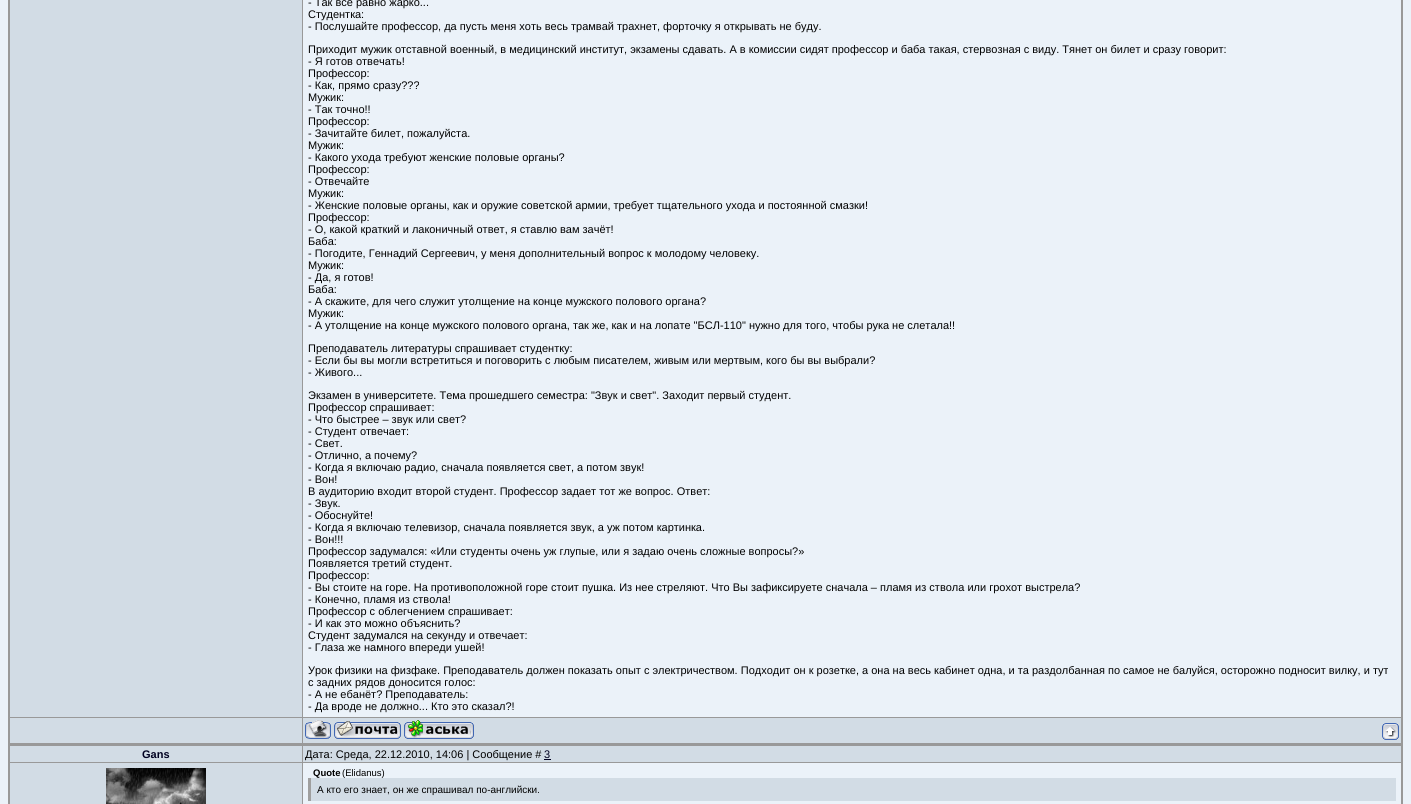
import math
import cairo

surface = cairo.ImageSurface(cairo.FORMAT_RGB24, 1411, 804)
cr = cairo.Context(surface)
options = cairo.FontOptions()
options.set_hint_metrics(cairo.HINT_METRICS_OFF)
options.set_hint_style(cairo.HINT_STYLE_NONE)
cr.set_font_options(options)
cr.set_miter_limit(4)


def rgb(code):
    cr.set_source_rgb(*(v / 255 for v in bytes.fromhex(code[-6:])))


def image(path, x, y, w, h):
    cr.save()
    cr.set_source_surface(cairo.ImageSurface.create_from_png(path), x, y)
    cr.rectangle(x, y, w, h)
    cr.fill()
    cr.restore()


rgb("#ebf2f9")
cr.paint()
for x, y, w, h, color in [
    (8, 0, 1395, 804, "#999999"),
    (10, 0, 292, 717, "#d2dce5"),
    (303, 0, 1098, 717, "#ebf2f9"),
    (10, 718, 292, 25, "#d2dce5"),
    (303, 718, 1098, 25, "#d2dce5"),
]:
    rgb(color)
    cr.rectangle(x, y, w, h)
    cr.fill()
image("img/1.png", 305, 720, 26, 19)
image("img/2.png", 334, 721, 67, 18)
image("img/3.png", 404, 720, 70, 19)
image("img/4.png", 1382, 723, 17, 17)
for x, y, w, h, color in [
    (10, 746, 292, 16, "#d2dce5"),
    (303, 746, 1098, 16, "#d2dce5"),
    (544, 759, 7, 1, "#000020"),
    (10, 763, 292, 41, "#d2dce5"),
]:
    rgb(color)
    cr.rectangle(x, y, w, h)
    cr.fill()
image("img/5.png", 106, 768, 100, 36)
for x, y, w, h, color in [
    (303, 763, 1098, 41, "#ebf2f9"),
    (311, 778, 1085, 23, "#d2dce5"),
    (308, 778, 3, 23, "#9f9f9f"),
]:
    rgb(color)
    cr.rectangle(x, y, w, h)
    cr.fill()
cr.select_font_face("Liberation Sans")
cr.set_font_size(11)
rgb("#000000")
for x, y, s in [
    (308, 6, "- Так все равно жарко..."),
    (308, 18, "Студентка:"),
    (308, 30, "- Послушайте профессор, да пусть меня хоть весь трамвай трахнет, форточку я открывать не буду."),
    (308, 53, "Приходит мужик отставной военный, в медицинский институт, экзамены сдавать. А в комиссии сидят профессор и баба такая, стервозная с виду. Тянет он билет и сразу говорит:"),
    (308, 65, "- Я готов отвечать!"),
    (308, 77, "Профессор:"),
    (308, 89, "- Как, прямо сразу???"),
    (308, 101, "Мужик:"),
    (308, 113, "- Так точно!!"),
    (308, 125, "Профессор:"),
    (308, 137, "- Зачитайте билет, пожалуйста."),
    (308, 149, "Мужик:"),
    (308, 161, "- Какого ухода требуют женские половые органы?"),
    (308, 173, "Профессор:"),
    (308, 185, "- Отвечайте"),
    (308, 197, "Мужик:"),
    (308, 209, "- Женские половые органы, как и оружие советской армии, требует тщательного ухода и постоянной смазки!"),
    (308, 221, "Профессор:"),
    (308, 233, "- О, какой краткий и лаконичный ответ, я ставлю вам зачёт!"),
    (308, 245, "Баба:"),
    (308, 257, "- Погодите, Геннадий Сергеевич, у меня дополнительный вопрос к молодому человеку."),
    (308, 269, "Мужик:"),
    (308, 281, "- Да, я готов!"),
    (308, 293, "Баба:"),
    (308, 305, "- А скажите, для чего служит утолщение на конце мужского полового органа?"),
    (308, 317, "Мужик:"),
    (308, 329, "- А утолщение на конце мужского полового органа, так же, как и на лопате \"БСЛ-110\" нужно для того, чтобы рука не слетала!!"),
    (308, 352, "Преподаватель литературы спрашивает студентку:"),
    (308, 364, "- Если бы вы могли встретиться и поговорить с любым писателем, живым или мертвым, кого бы вы выбрали?"),
    (308, 376, "- Живого..."),
    (308, 399, "Экзамен в университете. Тема прошедшего семестра: \"Звук и свет\". Заходит первый студент."),
    (308, 411, "Профессор спрашивает:"),
    (308, 423, "- Что быстрее – звук или свет?"),
    (308, 435, "- Студент отвечает:"),
    (308, 447, "- Свет."),
    (308, 459, "- Отлично, а почему?"),
    (308, 471, "- Когда я включаю радио, сначала появляется свет, а потом звук!"),
    (308, 483, "- Вон!"),
    (308, 495, "В аудиторию входит второй студент. Профессор задает тот же вопрос. Ответ:"),
    (308, 507, "- Звук."),
    (308, 519, "- Обоснуйте!"),
    (308, 531, "- Когда я включаю телевизор, сначала появляется звук, а уж потом картинка."),
    (308, 543, "- Вон!!!"),
    (308, 555, "Профессор задумался: «Или студенты очень уж глупые, или я задаю очень сложные вопросы?»"),
    (308, 567, "Появляется третий студент."),
    (308, 579, "Профессор:"),
    (308, 591, "- Вы стоите на горе. На противоположной горе стоит пушка. Из нее стреляют. Что Вы зафиксируете сначала – пламя из ствола или грохот выстрела?"),
    (308, 603, "- Конечно, пламя из ствола!"),
    (308, 615, "Профессор с облегчением спрашивает:"),
    (308, 627, "- И как это можно объяснить?"),
    (308, 639, "Студент задумался на секунду и отвечает:"),
    (308, 651, "- Глаза же намного впереди ушей!"),
    (308, 674, "Урок физики на физфаке. Преподаватель должен показать опыт с электричеством. Подходит он к розетке, а она на весь кабинет одна, и та раздолбанная по самое не балуйся, осторожно подносит вилку, и тут"),
    (308, 686, "с задних рядов доносится голос:"),
    (308, 698, "- А не ебанёт? Преподаватель:"),
    (308, 710, "- Да вроде не должно... Кто это сказал?!"),
]:
    cr.move_to(x, y)
    cr.show_text(s)
cr.select_font_face("Liberation Sans", cairo.FONT_SLANT_NORMAL, cairo.FONT_WEIGHT_BOLD)
rgb("#000020")
cr.move_to(142, 758)
cr.show_text("Gans")
cr.select_font_face("Liberation Sans")
rgb("#000000")
cr.move_to(305, 758)
cr.show_text("Дата: Среда, 22.12.2010, 14:06 | Сообщение #")
rgb("#000020")
cr.move_to(544, 758)
cr.show_text("3")
cr.select_font_face("Liberation Sans", cairo.FONT_SLANT_NORMAL, cairo.FONT_WEIGHT_BOLD)
cr.set_font_size(9.5)
rgb("#000000")
cr.move_to(313, 776)
cr.show_text("Quote")
cr.select_font_face("Liberation Sans")
cr.move_to(342, 776)
cr.show_text("(Elidanus)")
cr.set_font_size(10)
cr.move_to(317, 793)
cr.show_text("А кто его знает, он же спрашивал по-английски.")
surface.write_to_png("page.png")
